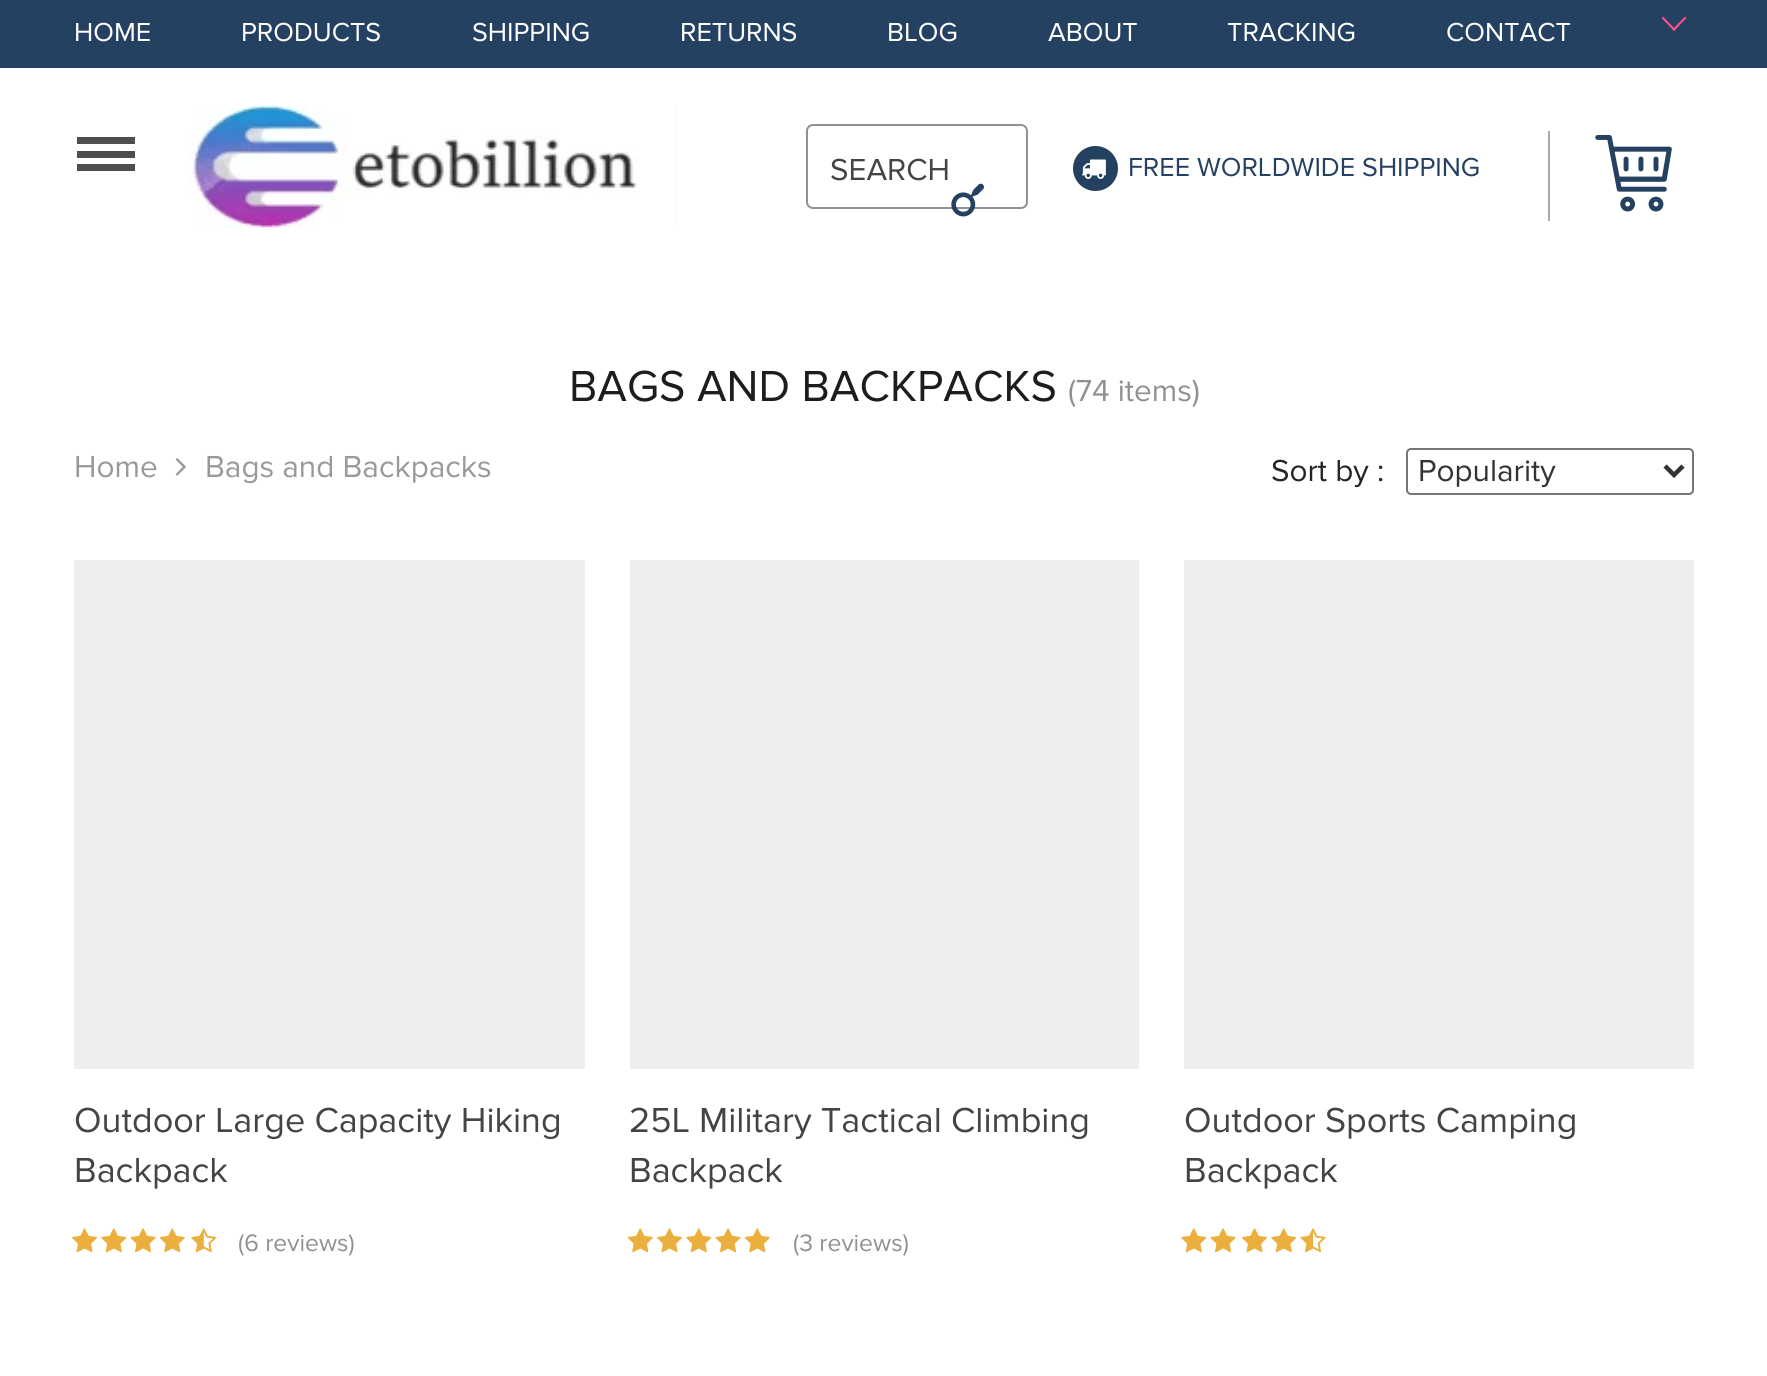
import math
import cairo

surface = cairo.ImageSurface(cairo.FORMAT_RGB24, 1767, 1376)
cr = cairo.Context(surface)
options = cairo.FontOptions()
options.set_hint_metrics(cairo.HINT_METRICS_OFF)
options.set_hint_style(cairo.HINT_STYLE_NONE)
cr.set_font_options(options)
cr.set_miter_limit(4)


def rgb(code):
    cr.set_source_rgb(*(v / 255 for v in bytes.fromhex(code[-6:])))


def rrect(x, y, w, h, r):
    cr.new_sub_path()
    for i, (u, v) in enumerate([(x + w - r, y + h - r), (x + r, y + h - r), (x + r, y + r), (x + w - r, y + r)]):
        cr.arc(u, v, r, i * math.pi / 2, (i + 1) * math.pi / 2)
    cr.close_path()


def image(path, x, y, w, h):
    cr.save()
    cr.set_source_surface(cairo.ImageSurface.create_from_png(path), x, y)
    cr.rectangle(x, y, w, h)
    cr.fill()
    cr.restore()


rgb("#ffffff")
cr.paint()
rgb("#254162")
cr.rectangle(0, 0, 1767, 68)
cr.fill()
rgb("#ff4d89")
cr.new_path()
cr.move_to(1686.5, 18)
cr.line_to(1674, 31)
cr.line_to(1672.5, 29.5)
cr.line_to(1685, 16.5)
cr.close_path()
cr.fill()
cr.new_path()
cr.move_to(1675.5, 29.5)
cr.line_to(1674, 31)
cr.line_to(1661.5, 18)
cr.line_to(1663, 16.5)
cr.close_path()
cr.fill()
for x, y, w, h, color in [
    (77, 137, 58, 7, "#4e4e4e"),
    (77, 151, 58, 7, "#4e4e4e"),
    (77, 164, 58, 7, "#4e4e4e"),
]:
    rgb(color)
    cr.rectangle(x, y, w, h)
    cr.fill()
image("img/1.png", 189, 105, 488, 123)
rrect(807, 125, 220, 83, 6)
rgb("#919191")
cr.stroke()
rgb("#254162")
cr.arc(1095.5, 168.5, 22.5, 0, 2 * math.pi)
cr.fill()
rgb("#a7a7a7")
cr.rectangle(1548, 131, 2, 90)
cr.fill()
image("img/2.png", 1595, 135, 77, 77)
image("img/3.png", 175, 458, 11, 18)
rrect(1407, 449, 286, 45, 4)
rgb("#767676")
cr.stroke()
cr.new_path()
cr.move_to(1665, 466)
cr.line_to(1674, 475)
cr.line_to(1683, 466)
rgb("#333333")
cr.set_line_width(4.5)
cr.stroke()
rgb("#eeeeee")
cr.rectangle(74, 560, 511, 509)
cr.fill()
image("img/4.png", 72, 1228, 25, 25)
image("img/5.png", 101, 1228, 26, 25)
image("img/6.png", 130, 1228, 26, 25)
image("img/7.png", 159, 1228, 26, 25)
image("img/8.png", 191, 1228, 26, 25)
cr.rectangle(630, 560, 509, 509)
cr.fill()
image("img/7.png", 627, 1228, 26, 25)
image("img/4.png", 657, 1228, 25, 25)
image("img/5.png", 686, 1228, 26, 25)
image("img/6.png", 715, 1228, 26, 25)
image("img/7.png", 744, 1228, 26, 25)
cr.rectangle(1184, 560, 510, 509)
cr.fill()
image("img/5.png", 1181, 1228, 26, 25)
image("img/6.png", 1210, 1228, 26, 25)
image("img/4.png", 1242, 1228, 25, 25)
image("img/5.png", 1271, 1228, 26, 25)
image("img/9.png", 1300, 1228, 26, 25)
cr.select_font_face("Proxima Nova")
cr.set_font_size(27)
rgb("#ffffff")
for x, y, s in [
    (74, 41, "HOME"),
    (241, 41, "PRODUCTS"),
    (472, 41, "SHIPPING"),
    (680, 41, "RETURNS"),
    (887, 41, "BLOG"),
    (1048, 41, "ABOUT"),
    (1227, 41, "TRACKING"),
    (1446, 41, "CONTACT"),
]:
    cr.move_to(x, y)
    cr.show_text(s)
cr.set_font_size(31.5)
rgb("#444444")
cr.move_to(830, 180)
cr.show_text("SEARCH")
cr.select_font_face("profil")
cr.set_font_size(43)
rgb("#254162")
cr.save()
cr.translate(984, 185)
cr.rotate(180 * math.pi / 180)
cr.move_to(0, 0)
cr.show_text(",")
cr.restore()
cr.set_font_size(24.75)
rgb("#ffffff")
cr.move_to(1082, 177)
cr.show_text("#")
cr.select_font_face("Proxima Nova")
cr.set_font_size(27)
rgb("#254162")
cr.move_to(1128, 176)
cr.show_text("FREE WORLDWIDE SHIPPING")
cr.set_font_size(45)
rgb("#1d1d1d")
cr.move_to(569, 401)
cr.show_text("BAGS AND BACKPACKS")
cr.set_font_size(31.5)
rgb("#919191")
cr.move_to(1068, 401)
cr.show_text("(74 items)")
rgb("#999999")
cr.move_to(74, 477)
cr.show_text("Home")
cr.move_to(205, 477)
cr.show_text("Bags and Backpacks")
rgb("#252525")
cr.move_to(1271, 481)
cr.show_text("Sort by :")
rgb("#333333")
cr.move_to(1418, 481)
cr.show_text("Popularity")
cr.set_font_size(36)
rgb("#444444")
cr.move_to(74, 1132)
cr.show_text("Outdoor Large Capacity Hiking")
cr.move_to(74, 1182)
cr.show_text("Backpack")
cr.set_font_size(24.75)
rgb("#919191")
cr.move_to(238, 1251)
cr.show_text("(6 reviews)")
cr.set_font_size(36)
rgb("#444444")
cr.move_to(629, 1132)
cr.show_text("25L Military Tactical Climbing")
cr.move_to(629, 1182)
cr.show_text("Backpack")
cr.set_font_size(24.75)
rgb("#919191")
cr.move_to(793, 1251)
cr.show_text("(3 reviews)")
cr.set_font_size(36)
rgb("#444444")
cr.move_to(1184, 1132)
cr.show_text("Outdoor Sports Camping")
cr.move_to(1184, 1182)
cr.show_text("Backpack")
surface.write_to_png("page.png")
